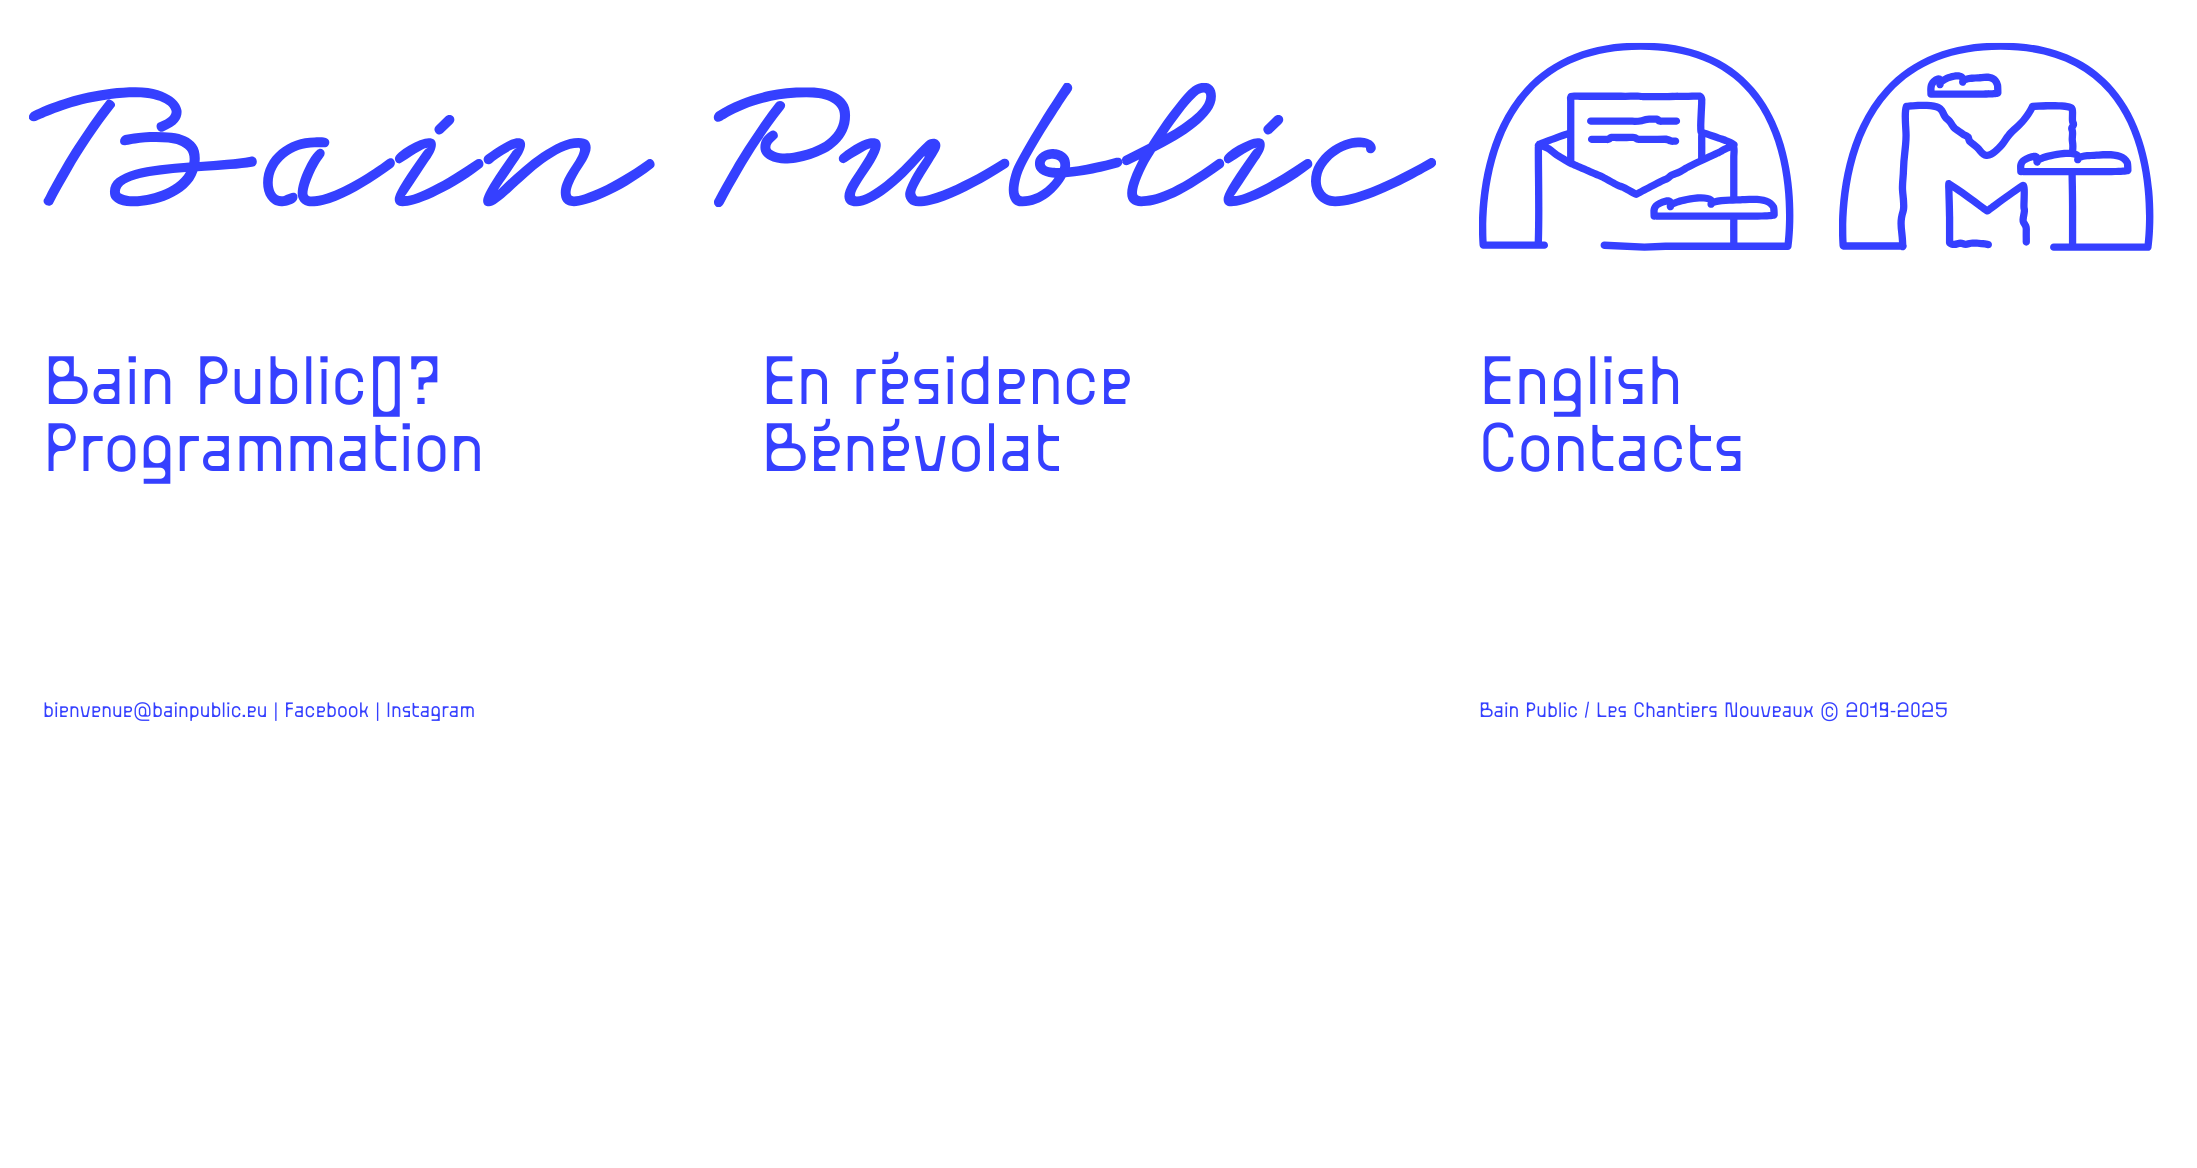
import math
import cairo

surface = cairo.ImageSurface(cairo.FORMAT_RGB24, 2197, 1168)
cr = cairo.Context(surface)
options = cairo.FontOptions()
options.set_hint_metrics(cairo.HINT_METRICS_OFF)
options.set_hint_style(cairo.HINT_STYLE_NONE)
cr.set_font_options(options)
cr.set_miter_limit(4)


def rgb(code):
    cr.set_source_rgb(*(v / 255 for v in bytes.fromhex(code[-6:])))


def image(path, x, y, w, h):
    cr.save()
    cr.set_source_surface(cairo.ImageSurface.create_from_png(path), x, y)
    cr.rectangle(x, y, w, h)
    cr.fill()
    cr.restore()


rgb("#ffffff")
cr.paint()
image("img/1.png", 29, 82, 1407, 126)
image("img/2.png", 1479, 42, 315, 209)
image("img/3.png", 1839, 42, 315, 209)
cr.select_font_face("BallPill")
cr.set_font_size(55.5)
rgb("#3540ff")
for x, y, s in [
    (43, 404, "Bain Public ?"),
    (761, 404, "En résidence"),
    (1479, 404, "English"),
    (43, 471, "Programmation"),
    (761, 471, "Bénévolat"),
    (1479, 471, "Contacts"),
]:
    cr.move_to(x, y)
    cr.show_text(s)
cr.set_font_size(16.95)
cr.move_to(43, 717)
cr.show_text("bienvenue@bainpublic.eu | Facebook | Instagram")
cr.move_to(1479, 717)
cr.show_text("Bain Public / Les Chantiers Nouveaux © 2019-2025")
surface.write_to_png("page.png")
